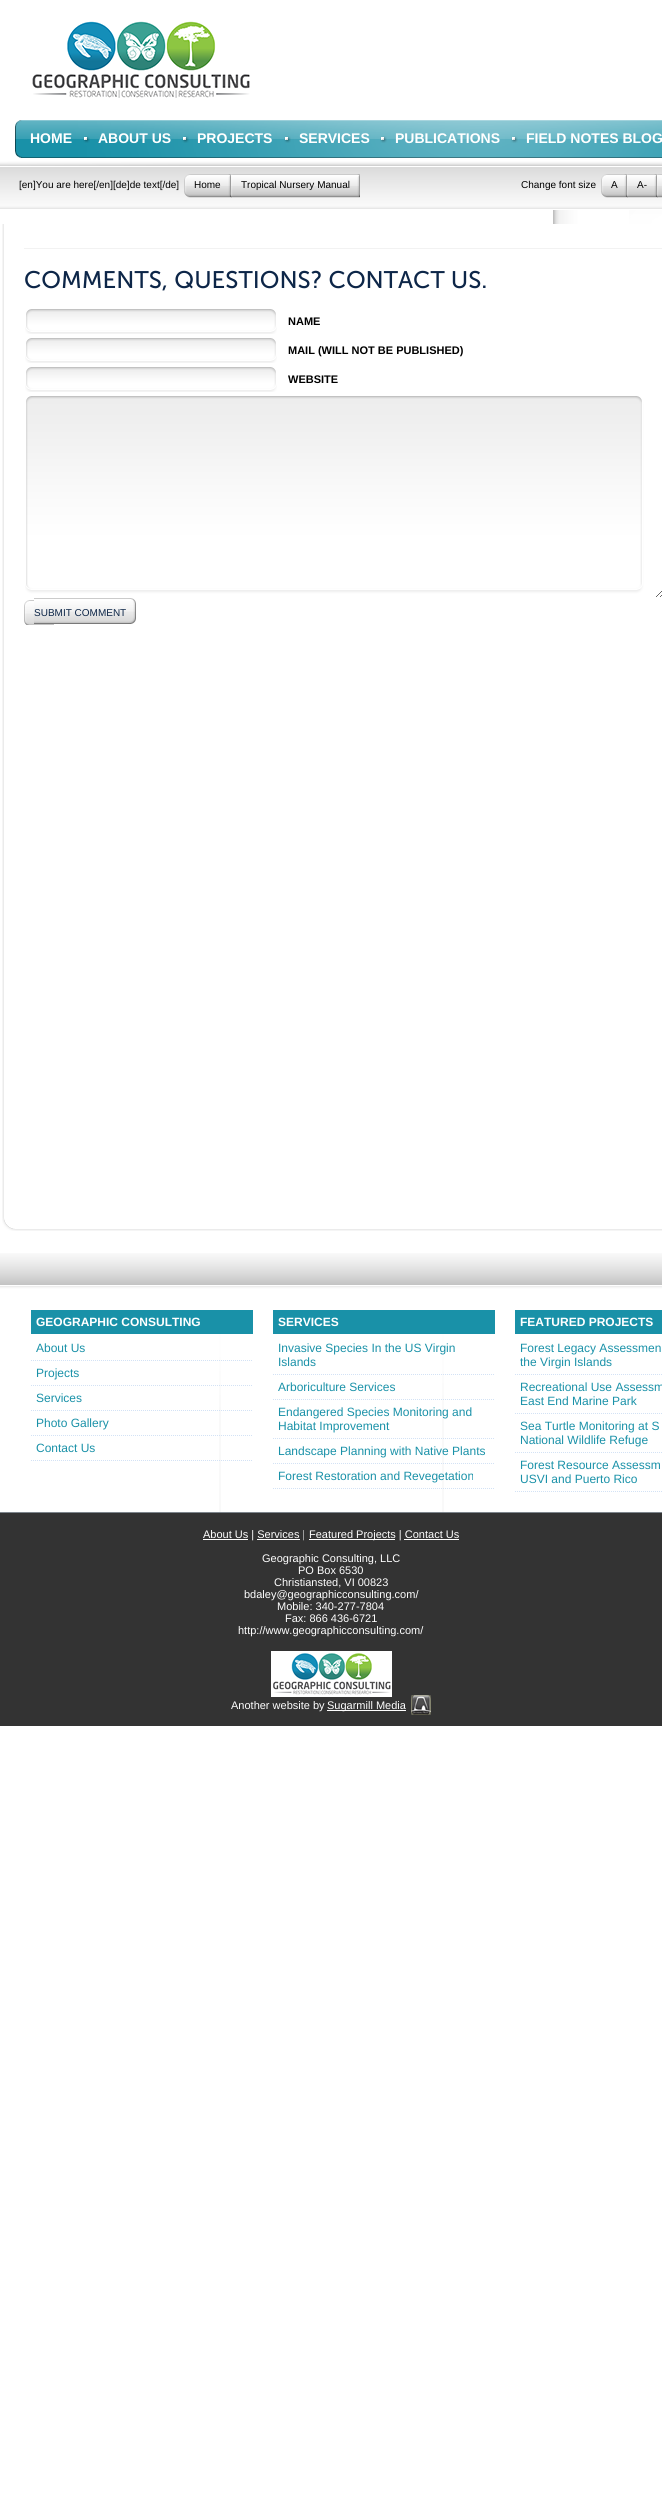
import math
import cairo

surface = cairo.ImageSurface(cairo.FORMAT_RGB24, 662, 2508)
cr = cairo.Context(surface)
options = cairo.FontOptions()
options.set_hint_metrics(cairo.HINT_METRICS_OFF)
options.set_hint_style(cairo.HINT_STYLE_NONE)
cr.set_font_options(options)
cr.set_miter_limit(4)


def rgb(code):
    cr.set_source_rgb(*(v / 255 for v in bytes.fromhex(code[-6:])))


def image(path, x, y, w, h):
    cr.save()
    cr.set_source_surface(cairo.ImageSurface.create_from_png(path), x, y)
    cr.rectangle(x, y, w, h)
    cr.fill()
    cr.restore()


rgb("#ffffff")
cr.paint()
image("img/1.png", 0, 134, 662, 90)
image("img/2.png", 2, 1213, 660, 18)
image("img/3.png", 32, 21, 218, 77)
rgb("#1991a8")
cr.rectangle(15, 120, 647, 38)
cr.fill()
image("img/4.png", 15, 120, 647, 38)
image("img/5.png", 83, 136, 7, 7)
image("img/6.png", 182, 136, 7, 7)
image("img/7.png", 284, 136, 7, 7)
image("img/8.png", 380, 136, 7, 7)
image("img/9.png", 511, 136, 7, 7)
image("img/10.png", 184, 174, 10, 24)
image("img/11.png", 194, 174, 37, 24)
image("img/12.png", 231, 174, 10, 24)
image("img/13.png", 241, 174, 119, 24)
image("img/10.png", 601, 174, 10, 24)
image("img/14.png", 611, 174, 16, 24)
image("img/12.png", 627, 174, 10, 24)
image("img/15.png", 637, 174, 20, 24)
image("img/16.png", 657, 174, 5, 24)
image("img/17.png", 2, 224, 2, 989)
rgb("#f2f2f2")
cr.rectangle(24, 248, 638, 1)
cr.fill()
image("img/18.png", 25, 309, 252, 25)
image("img/18.png", 25, 338, 252, 25)
image("img/18.png", 25, 367, 252, 25)
image("img/19.png", 25, 396, 637, 201)
image("img/20.png", 24, 600, 30, 25)
image("img/21.png", 34, 598, 102, 26)
image("img/22.png", 0, 1253, 662, 259)
rgb("#1991a8")
cr.rectangle(31, 1310, 222, 24)
cr.fill()
cr.new_path()
cr.move_to(31, 1360.5)
cr.line_to(253, 1360.5)
rgb("#d3e2f5")
cr.set_line_width(1)
cr.set_dash([1, 1])
cr.stroke()
cr.new_path()
cr.move_to(31, 1385.5)
cr.line_to(253, 1385.5)
cr.stroke()
cr.new_path()
cr.move_to(31, 1410.5)
cr.line_to(253, 1410.5)
cr.stroke()
cr.new_path()
cr.move_to(31, 1435.5)
cr.line_to(253, 1435.5)
cr.stroke()
cr.new_path()
cr.move_to(31, 1460.5)
cr.line_to(253, 1460.5)
cr.stroke()
rgb("#1991a8")
cr.rectangle(273, 1310, 222, 24)
cr.fill()
cr.new_path()
cr.move_to(273, 1374.5)
cr.line_to(495, 1374.5)
rgb("#d3e2f5")
cr.stroke()
cr.new_path()
cr.move_to(273, 1399.5)
cr.line_to(495, 1399.5)
cr.stroke()
cr.new_path()
cr.move_to(273, 1438.5)
cr.line_to(495, 1438.5)
cr.stroke()
cr.new_path()
cr.move_to(273, 1463.5)
cr.line_to(495, 1463.5)
cr.stroke()
cr.new_path()
cr.move_to(273, 1488.5)
cr.line_to(495, 1488.5)
cr.stroke()
rgb("#1991a8")
cr.rectangle(515, 1310, 147, 24)
cr.fill()
cr.new_path()
cr.move_to(515, 1374.5)
cr.line_to(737, 1374.5)
rgb("#d3e2f5")
cr.stroke()
cr.new_path()
cr.move_to(515, 1413.5)
cr.line_to(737, 1413.5)
cr.stroke()
cr.new_path()
cr.move_to(515, 1452.5)
cr.line_to(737, 1452.5)
cr.stroke()
cr.new_path()
cr.move_to(515, 1491.5)
cr.line_to(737, 1491.5)
cr.stroke()
for x, y, w, h, color in [
    (0, 1513, 662, 213, "#333333"),
    (0, 1512, 662, 1, "#7d858c"),
    (203, 1539, 45, 1, "#ffffff"),
    (309, 1539, 86, 1, "#ffffff"),
    (257, 1539, 43, 1, "#ffffff"),
    (404, 1539, 55, 1, "#ffffff"),
]:
    rgb(color)
    cr.rectangle(x, y, w, h)
    cr.fill()
image("img/23.png", 271, 1651, 121, 46)
cr.rectangle(327, 1710, 79, 1)
cr.fill()
image("img/24.png", 411, 1695, 20, 20)
cr.select_font_face("Liberation Sans", cairo.FONT_SLANT_NORMAL, cairo.FONT_WEIGHT_BOLD)
cr.set_font_size(14)
for x, y, s in [
    (30, 143, "HOME"),
    (98, 143, "ABOUT US"),
    (197, 143, "PROJECTS"),
    (299, 143, "SERVICES"),
    (395, 143, "PUBLICATIONS"),
    (526, 143, "FIELD NOTES BLOG"),
]:
    cr.move_to(x, y)
    cr.show_text(s)
cr.select_font_face("Liberation Sans")
cr.set_font_size(10)
rgb("#000000")
for x, y, s in [
    (19, 188, "[en]You are here[/en][de]de text[/de]"),
    (194, 188, "Home"),
    (241, 188, "Tropical Nursery Manual"),
    (521, 188, "Change font size"),
    (611, 188, "A"),
    (637, 188, "A-"),
]:
    cr.move_to(x, y)
    cr.show_text(s)
cr.select_font_face("Museo Sans")
cr.set_font_size(24)
rgb("#0d2648")
cr.move_to(24, 288)
cr.show_text("COMMENTS, QUESTIONS? CONTACT US.")
cr.select_font_face("Liberation Sans", cairo.FONT_SLANT_NORMAL, cairo.FONT_WEIGHT_BOLD)
cr.set_font_size(11)
rgb("#000000")
for x, y, s in [
    (288, 325, "NAME"),
    (288, 354, "MAIL (WILL NOT BE PUBLISHED)"),
    (288, 383, "WEBSITE"),
]:
    cr.move_to(x, y)
    cr.show_text(s)
cr.select_font_face("Liberation Sans")
cr.set_font_size(10)
rgb("#0d2648")
cr.move_to(34, 616)
cr.show_text("SUBMIT COMMENT")
cr.select_font_face("Liberation Sans", cairo.FONT_SLANT_NORMAL, cairo.FONT_WEIGHT_BOLD)
cr.set_font_size(12)
rgb("#ffffff")
cr.move_to(36, 1326)
cr.show_text("GEOGRAPHIC CONSULTING")
cr.select_font_face("Liberation Sans")
rgb("#1991a8")
for x, y, s in [
    (36, 1352, "About Us"),
    (36, 1377, "Projects"),
    (36, 1402, "Services"),
    (36, 1427, "Photo Gallery"),
    (36, 1452, "Contact Us"),
]:
    cr.move_to(x, y)
    cr.show_text(s)
cr.select_font_face("Liberation Sans", cairo.FONT_SLANT_NORMAL, cairo.FONT_WEIGHT_BOLD)
rgb("#ffffff")
cr.move_to(278, 1326)
cr.show_text("SERVICES")
cr.select_font_face("Liberation Sans")
rgb("#1991a8")
for x, y, s in [
    (278, 1352, "Invasive Species In the US Virgin"),
    (278, 1366, "Islands"),
    (278, 1391, "Arboriculture Services"),
    (278, 1416, "Endangered Species Monitoring and"),
    (278, 1430, "Habitat Improvement"),
    (278, 1455, "Landscape Planning with Native Plants"),
    (278, 1480, "Forest Restoration and Revegetation"),
]:
    cr.move_to(x, y)
    cr.show_text(s)
cr.select_font_face("Liberation Sans", cairo.FONT_SLANT_NORMAL, cairo.FONT_WEIGHT_BOLD)
rgb("#ffffff")
cr.move_to(520, 1326)
cr.show_text("FEATURED PROJECTS")
cr.select_font_face("Liberation Sans")
rgb("#1991a8")
for x, y, s in [
    (520, 1352, "Forest Legacy Assessmen"),
    (520, 1366, "the Virgin Islands"),
    (520, 1391, "Recreational Use Assessm"),
    (520, 1405, "East End Marine Park"),
    (520, 1430, "Sea Turtle Monitoring at S"),
    (520, 1444, "National Wildlife Refuge"),
    (520, 1469, "Forest Resource Assessm"),
    (520, 1483, "USVI and Puerto Rico"),
]:
    cr.move_to(x, y)
    cr.show_text(s)
cr.set_font_size(11)
rgb("#ffffff")
for x, y, s in [
    (203, 1538, "About Us | Services |"),
    (309, 1538, "Featured Projects | Contact Us"),
    (262, 1562, "Geographic Consulting, LLC"),
    (298, 1574, "PO Box 6530"),
    (274, 1586, "Christiansted, VI 00823"),
    (244, 1598, "bdaley@geographicconsulting.com/"),
    (277, 1610, "Mobile: 340-277-7804"),
    (285, 1622, "Fax: 866 436-6721"),
    (238, 1634, "http://www.geographicconsulting.com/"),
    (231, 1709, "Another website by"),
    (327, 1709, "Sugarmill Media"),
]:
    cr.move_to(x, y)
    cr.show_text(s)
surface.write_to_png("page.png")
